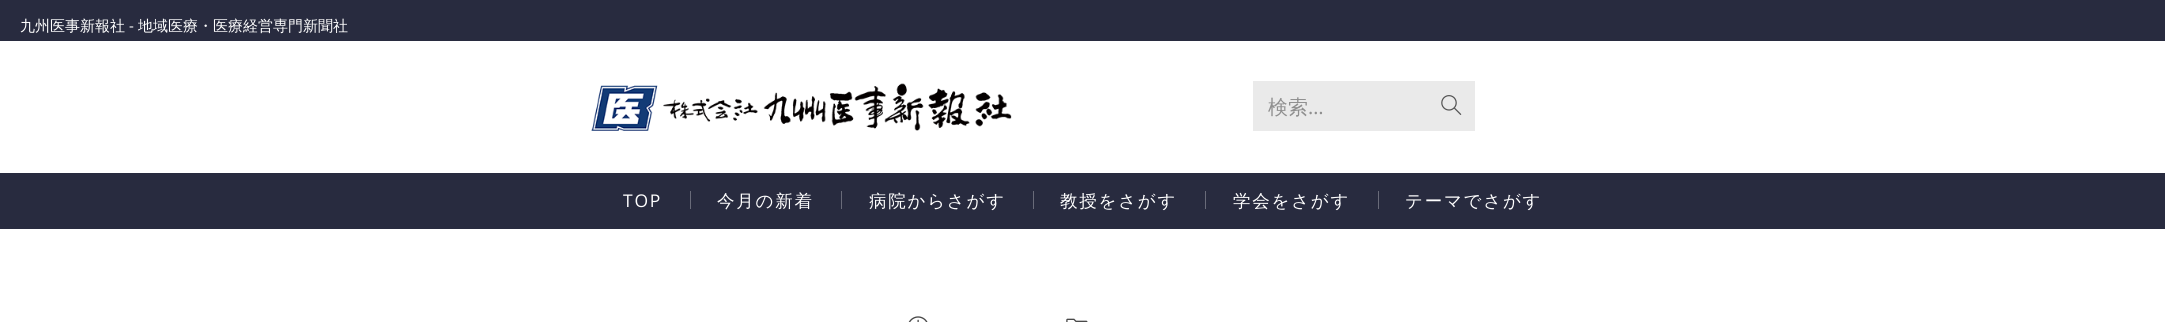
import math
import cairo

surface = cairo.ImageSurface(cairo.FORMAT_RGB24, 2165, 322)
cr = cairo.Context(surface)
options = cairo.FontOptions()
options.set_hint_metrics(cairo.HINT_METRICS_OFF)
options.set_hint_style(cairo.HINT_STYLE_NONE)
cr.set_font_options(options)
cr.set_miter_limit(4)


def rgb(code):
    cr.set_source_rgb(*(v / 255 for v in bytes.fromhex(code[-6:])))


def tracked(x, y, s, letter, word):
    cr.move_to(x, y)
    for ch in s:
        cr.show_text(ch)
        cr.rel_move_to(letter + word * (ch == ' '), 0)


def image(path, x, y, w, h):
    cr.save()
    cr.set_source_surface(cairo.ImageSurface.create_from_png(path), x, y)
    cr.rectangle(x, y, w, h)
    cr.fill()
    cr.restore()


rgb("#ffffff")
cr.paint()
rgb("#282b3f")
cr.rectangle(0, 0, 2165, 41)
cr.fill()
image("img/1.png", 591, 83, 421, 48)
rgb("#eaeaea")
cr.rectangle(1253, 81, 222, 50)
cr.fill()
image("img/2.png", 1441, 95, 21, 20)
for x, y, w, h, color in [
    (0, 173, 2165, 56, "#282b3f"),
    (690, 191, 1, 18, "#696b79"),
    (841, 191, 1, 18, "#696b79"),
    (1033, 191, 1, 18, "#696b79"),
    (1205, 191, 1, 18, "#696b79"),
    (1378, 191, 1, 18, "#696b79"),
]:
    rgb(color)
    cr.rectangle(x, y, w, h)
    cr.fill()
image("img/3.png", 908, 316, 20, 6)
image("img/4.png", 1066, 318, 22, 4)
cr.select_font_face("WenQuanYi Zen Hei Medium")
cr.set_font_size(15)
rgb("#ffffff")
cr.move_to(20, 31)
cr.show_text("九州医事新報社")
cr.select_font_face("Open Sans")
cr.move_to(129, 31)
cr.show_text("-")
cr.select_font_face("WenQuanYi Zen Hei Medium")
cr.move_to(138, 31)
cr.show_text("地域医療・医療経営専門新聞社")
cr.set_font_size(20)
rgb("#8f8f8f")
cr.move_to(1268, 114)
cr.show_text("検索")
cr.select_font_face("Open Sans")
cr.move_to(1308, 114)
cr.show_text("…")
cr.set_font_size(17.5)
rgb("#ffffff")
tracked(623, 207, "TOP", 1.75, 0)
cr.select_font_face("WenQuanYi Zen Hei Medium")
for x, y, s in [
    (717, 207, "今月の新着"),
    (869, 207, "病院からさがす"),
    (1060, 207, "教授をさがす"),
    (1233, 207, "学会をさがす"),
    (1405, 207, "テーマでさがす"),
]:
    tracked(x, y, s, 1.75, 0)
surface.write_to_png("page.png")
